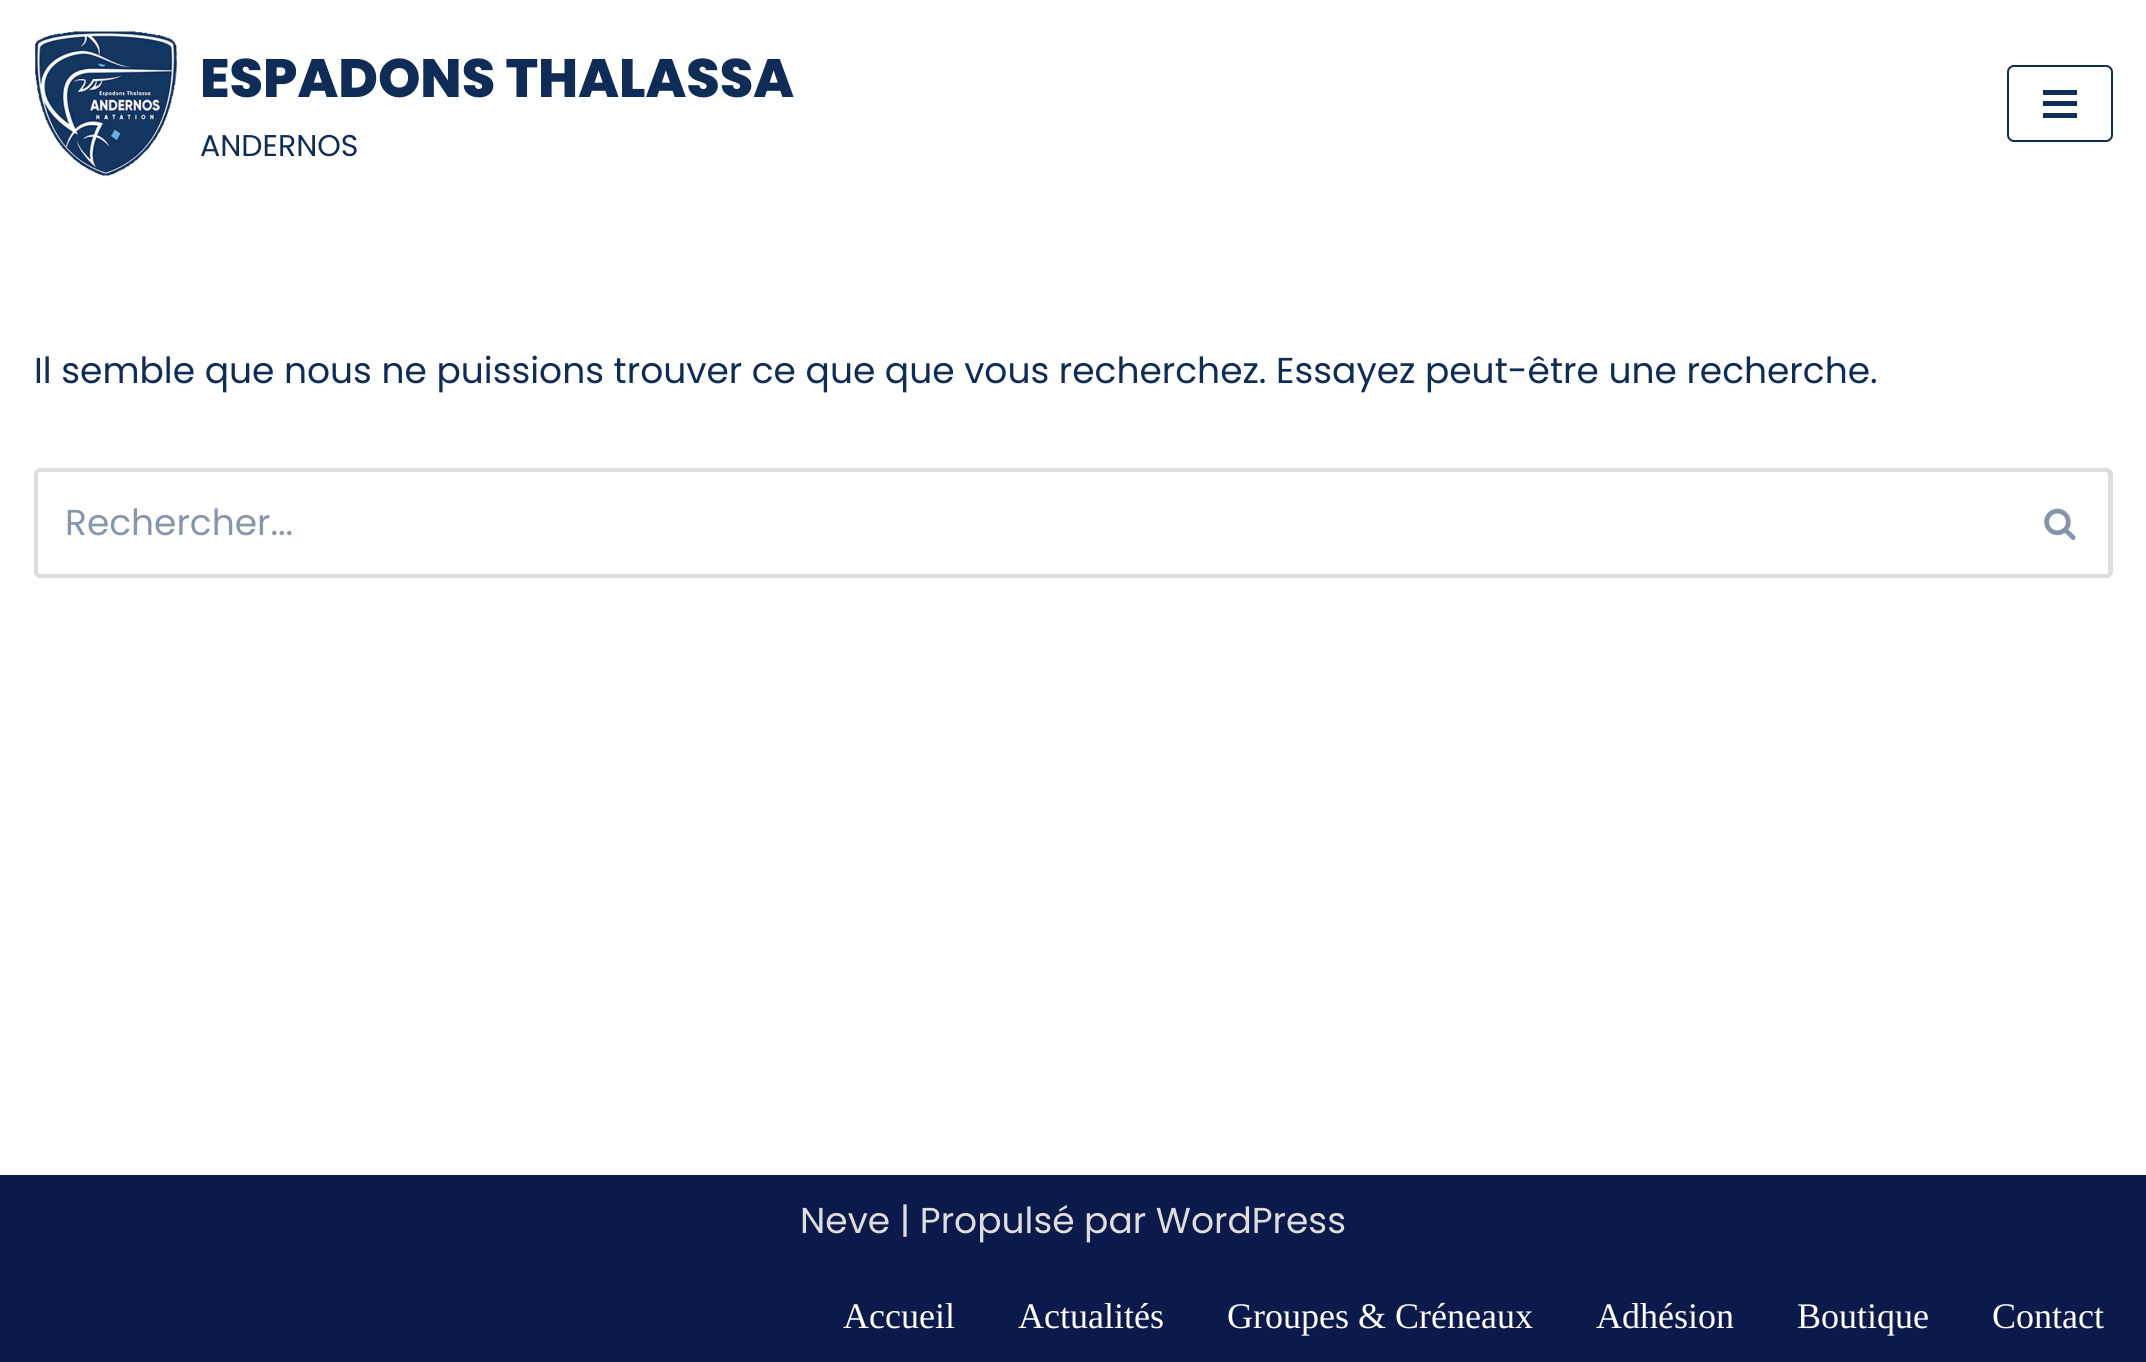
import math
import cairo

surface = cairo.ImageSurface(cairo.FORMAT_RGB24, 2146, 1362)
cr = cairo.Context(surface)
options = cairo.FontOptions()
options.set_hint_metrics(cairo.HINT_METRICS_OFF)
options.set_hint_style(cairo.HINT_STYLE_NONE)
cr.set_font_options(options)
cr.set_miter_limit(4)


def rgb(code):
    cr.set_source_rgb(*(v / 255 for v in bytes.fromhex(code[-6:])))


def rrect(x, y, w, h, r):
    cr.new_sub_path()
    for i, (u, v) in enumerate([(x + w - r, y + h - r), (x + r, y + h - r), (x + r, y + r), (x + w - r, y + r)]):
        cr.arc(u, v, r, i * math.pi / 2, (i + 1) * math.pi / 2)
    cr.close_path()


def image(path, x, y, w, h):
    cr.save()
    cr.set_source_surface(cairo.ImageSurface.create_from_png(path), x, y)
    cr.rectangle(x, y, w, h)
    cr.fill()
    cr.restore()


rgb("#ffffff")
cr.paint()
image("img/1.png", 35, 31, 143, 145)
rrect(2008, 66, 104, 75, 6)
rgb("#0f2c56")
cr.stroke()
for x, y, w, h, color in [
    (2043, 90, 34, 5, "#0f2c56"),
    (2043, 101, 34, 5, "#0f2c56"),
    (2043, 113, 34, 5, "#0f2c56"),
]:
    rgb(color)
    cr.rectangle(x, y, w, h)
    cr.fill()
rgb("#dddddd")
cr.set_fill_rule(cairo.FILL_RULE_EVEN_ODD)
cr.new_path()
cr.move_to(40, 468)
cr.line_to(2012, 468)
cr.line_to(2012, 578)
cr.line_to(40, 578)
cr.curve_to(37, 578, 34, 575, 34, 572)
cr.line_to(34, 475)
cr.curve_to(34, 471, 37, 468, 40, 468)
cr.close_path()
cr.move_to(40, 472)
cr.line_to(2012, 472)
cr.line_to(2012, 574)
cr.line_to(40, 574)
cr.curve_to(39, 574, 38, 573, 38, 572)
cr.line_to(38, 475)
cr.curve_to(38, 474, 39, 472, 40, 472)
cr.close_path()
cr.fill()
cr.new_path()
cr.move_to(2012, 468)
cr.line_to(2106, 468)
cr.curve_to(2110, 468, 2113, 471, 2113, 475)
cr.line_to(2113, 572)
cr.curve_to(2113, 575, 2110, 578, 2106, 578)
cr.line_to(2012, 578)
cr.close_path()
cr.move_to(2012, 472)
cr.line_to(2106, 472)
cr.curve_to(2107, 472, 2108, 474, 2108, 475)
cr.line_to(2108, 572)
cr.curve_to(2108, 573, 2107, 574, 2106, 574)
cr.line_to(2012, 574)
cr.close_path()
cr.fill()
image("img/2.png", 2044, 508, 32, 32)
rgb("#0b1a4a")
cr.rectangle(0, 1175, 2146, 187)
cr.fill()
cr.select_font_face("Poppins ExtraBold")
cr.set_font_size(54)
rgb("#0f2c56")
cr.move_to(200, 97)
cr.show_text("ESPADONS THALASSA")
cr.select_font_face("Poppins")
cr.set_font_size(30)
cr.move_to(200, 156)
cr.show_text("ANDERNOS")
cr.set_font_size(36)
cr.move_to(34, 383)
cr.show_text("Il semble que nous ne puissions trouver ce que que vous recherchez. Essayez peut-être une recherche.")
rgb("#8796ab")
cr.move_to(65, 535)
cr.show_text("Rechercher...")
rgb("#dedede")
cr.move_to(800, 1233)
cr.show_text("Neve | Propulsé par WordPress")
cr.select_font_face("Liberation Serif")
rgb("#ffffff")
for x, y, s in [
    (843, 1328, "Accueil"),
    (1018, 1328, "Actualités"),
    (1227, 1328, "Groupes & Créneaux"),
    (1596, 1328, "Adhésion"),
    (1797, 1328, "Boutique"),
    (1992, 1328, "Contact"),
]:
    cr.move_to(x, y)
    cr.show_text(s)
surface.write_to_png("page.png")
